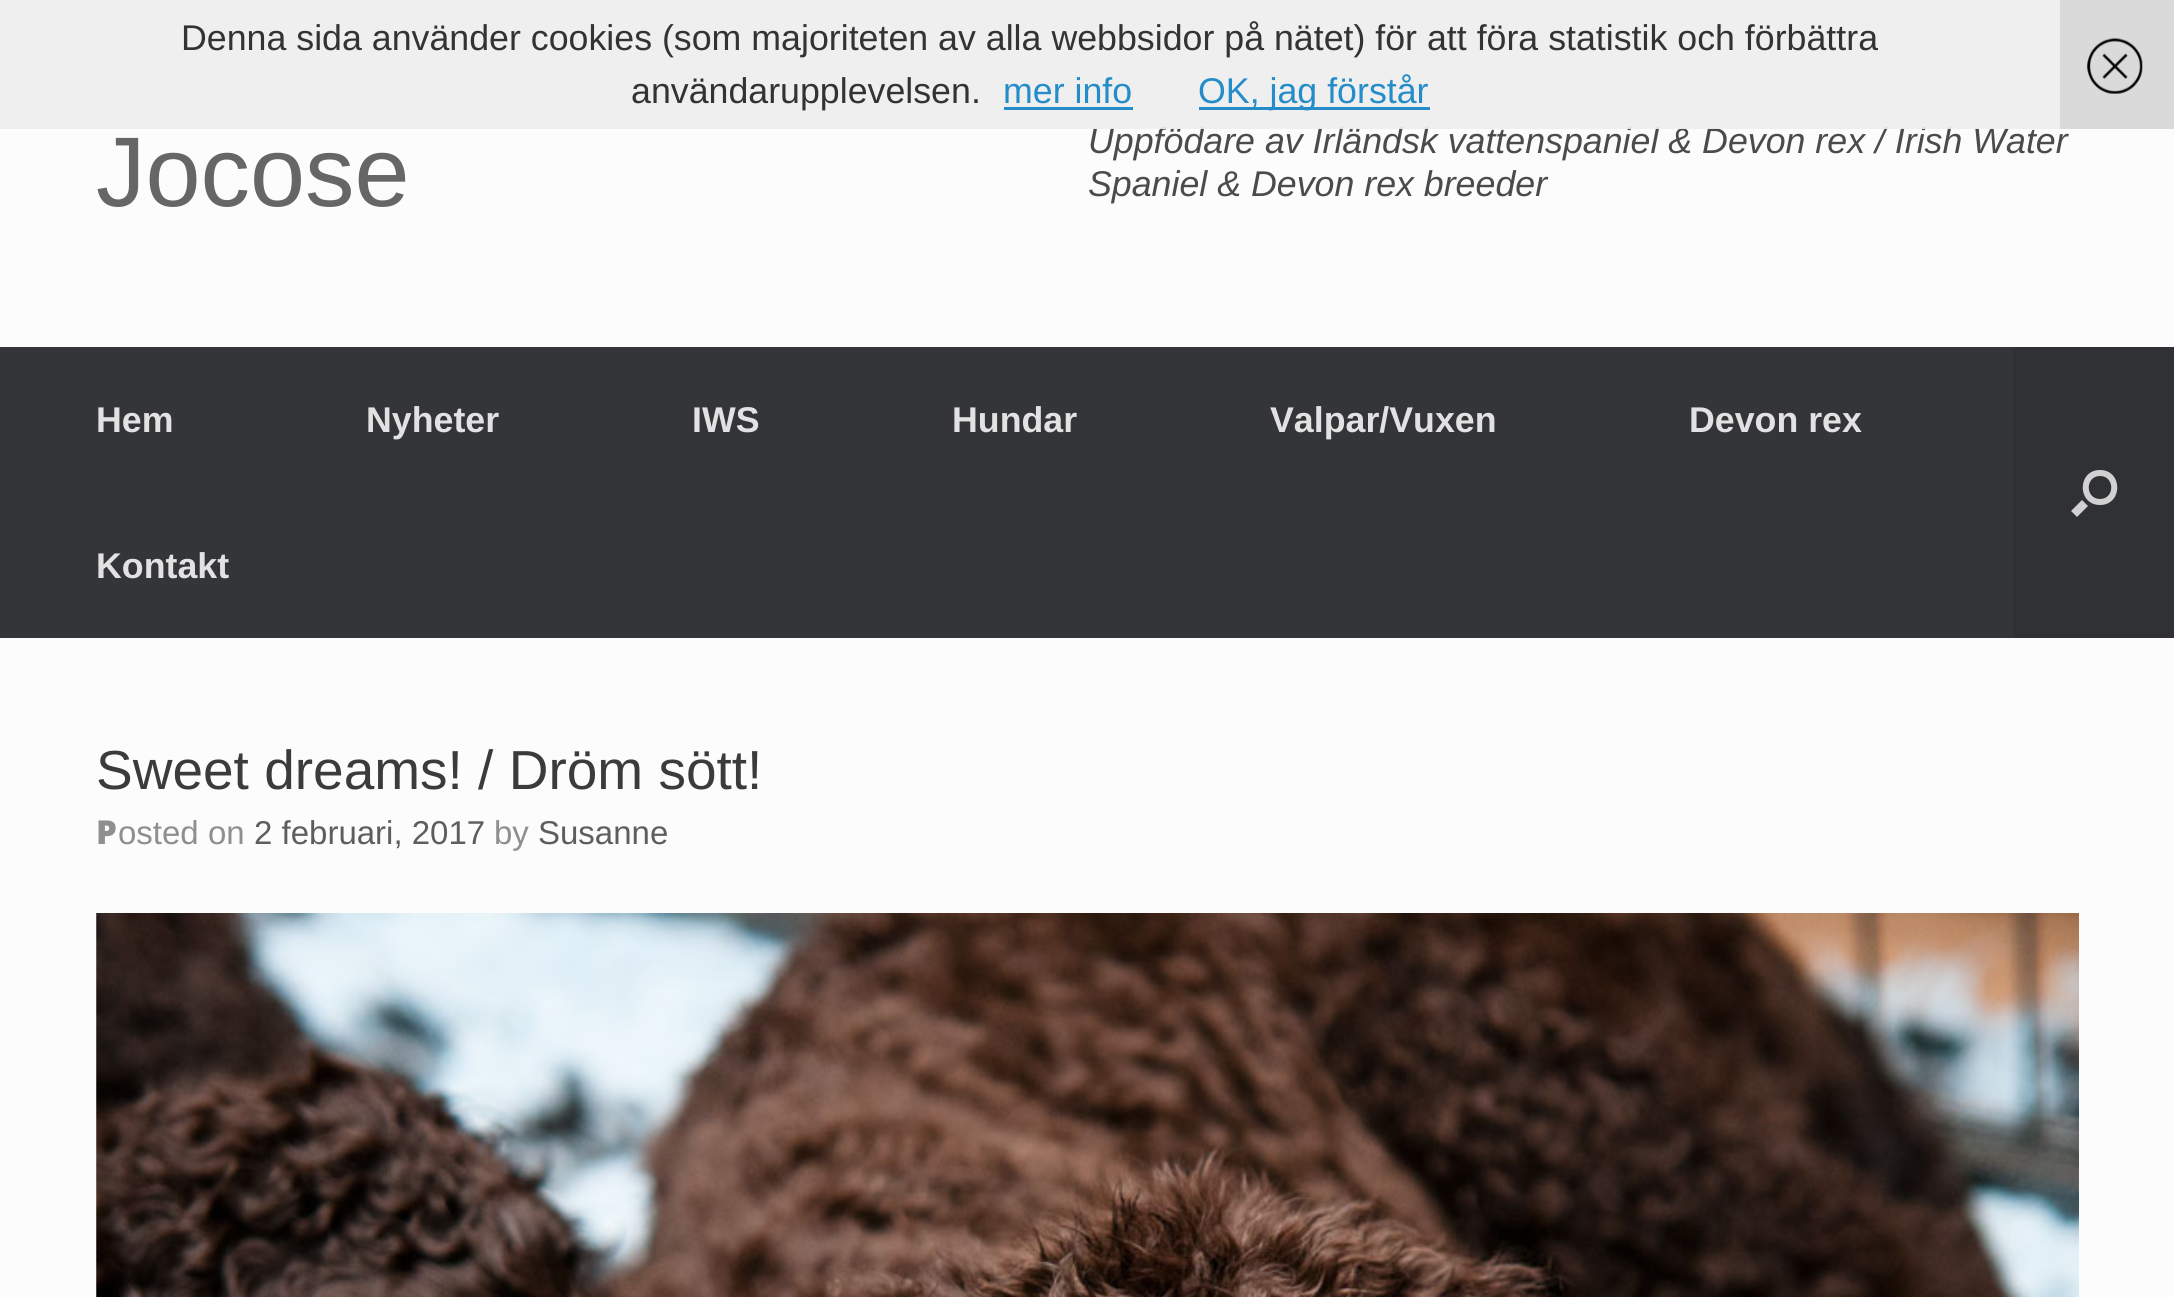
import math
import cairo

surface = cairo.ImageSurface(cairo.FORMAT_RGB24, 2174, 1297)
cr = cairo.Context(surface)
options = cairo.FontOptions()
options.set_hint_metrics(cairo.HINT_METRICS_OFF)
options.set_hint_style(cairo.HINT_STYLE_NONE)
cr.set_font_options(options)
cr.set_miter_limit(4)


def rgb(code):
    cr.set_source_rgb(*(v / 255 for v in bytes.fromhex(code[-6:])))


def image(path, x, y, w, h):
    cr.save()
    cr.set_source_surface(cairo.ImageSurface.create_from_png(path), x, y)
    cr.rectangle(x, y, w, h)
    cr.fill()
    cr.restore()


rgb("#fcfcfc")
cr.paint()
rgb("#343538")
cr.rectangle(0, 347, 2013, 291)
cr.fill()
rgb("#303134")
cr.rectangle(2013, 347, 161, 291)
cr.fill()
rgb("#d1d1d1")
cr.new_path()
cr.move_to(2100, 476)
cr.curve_to(2115, 476, 2115, 499, 2100, 499)
cr.curve_to(2085, 499, 2085, 476, 2100, 476)
cr.close_path()
cr.move_to(2100, 470)
cr.curve_to(2077, 470, 2077, 505, 2100, 505)
cr.curve_to(2123, 505, 2123, 470, 2100, 470)
cr.close_path()
cr.move_to(2082, 500)
cr.line_to(2088, 506)
cr.line_to(2077, 517)
cr.line_to(2071, 511)
cr.close_path()
cr.fill()
image("img/2.png", 96, 913, 1983, 384)
cr.select_font_face("Liberation Sans")
cr.set_font_size(99)
rgb("#666666")
cr.move_to(96, 206)
cr.show_text("Jocose")
cr.select_font_face("Liberation Sans", cairo.FONT_SLANT_ITALIC)
cr.set_font_size(35.75)
rgb("#4b4b4b")
cr.move_to(1088, 153)
cr.show_text("Uppfödare av Irländsk vattenspaniel & Devon rex / Irish Water")
rgb("#dadada")
cr.rectangle(2060, 0, 114, 129)
cr.fill()
image("img/1.png", 2087, 37, 56, 57)
cr.set_source_rgba(0.933, 0.933, 0.933, 0.9)
cr.rectangle(0, 0, 2060, 129)
cr.fill()
rgb("#248cc8")
cr.rectangle(1199, 107, 231, 3)
cr.fill()
cr.select_font_face("Liberation Sans")
cr.move_to(1198, 103)
cr.show_text("OK, jag förstår")
cr.move_to(1003, 103)
cr.show_text("mer info")
cr.rectangle(1004, 107, 129, 3)
cr.fill()
rgb("#333333")
cr.move_to(631, 103)
cr.show_text("användarupplevelsen.")
cr.move_to(181, 50)
cr.show_text("Denna sida använder cookies (som majoriteten av alla webbsidor på nätet) för att föra statistik och förbättra")
cr.select_font_face("Liberation Sans", cairo.FONT_SLANT_ITALIC)
rgb("#4b4b4b")
cr.move_to(1088, 196)
cr.show_text("Spaniel & Devon rex breeder")
cr.select_font_face("Liberation Sans", cairo.FONT_SLANT_NORMAL, cairo.FONT_WEIGHT_BOLD)
rgb("#e2e2e2")
for x, y, s in [
    (96, 432, "Hem"),
    (366, 432, "Nyheter"),
    (692, 432, "IWS"),
    (952, 432, "Hundar"),
    (1270, 432, "Valpar/Vuxen"),
    (1689, 432, "Devon rex"),
    (96, 578, "Kontakt"),
]:
    cr.move_to(x, y)
    cr.show_text(s)
cr.select_font_face("Liberation Sans")
cr.set_font_size(55)
rgb("#3b3b3b")
cr.move_to(96, 789)
cr.show_text("Sweet dreams! / Dröm sött!")
cr.select_font_face("Noto Sans Black")
cr.set_font_size(33)
rgb("#8f8f8f")
cr.move_to(96, 844)
cr.show_text("P")
cr.select_font_face("Liberation Sans")
cr.move_to(118, 844)
cr.show_text("osted on")
rgb("#5e5e5e")
cr.move_to(254, 844)
cr.show_text("2 februari, 2017")
rgb("#8f8f8f")
cr.move_to(494, 844)
cr.show_text("by")
rgb("#5e5e5e")
cr.move_to(538, 844)
cr.show_text("Susanne")
surface.write_to_png("page.png")
